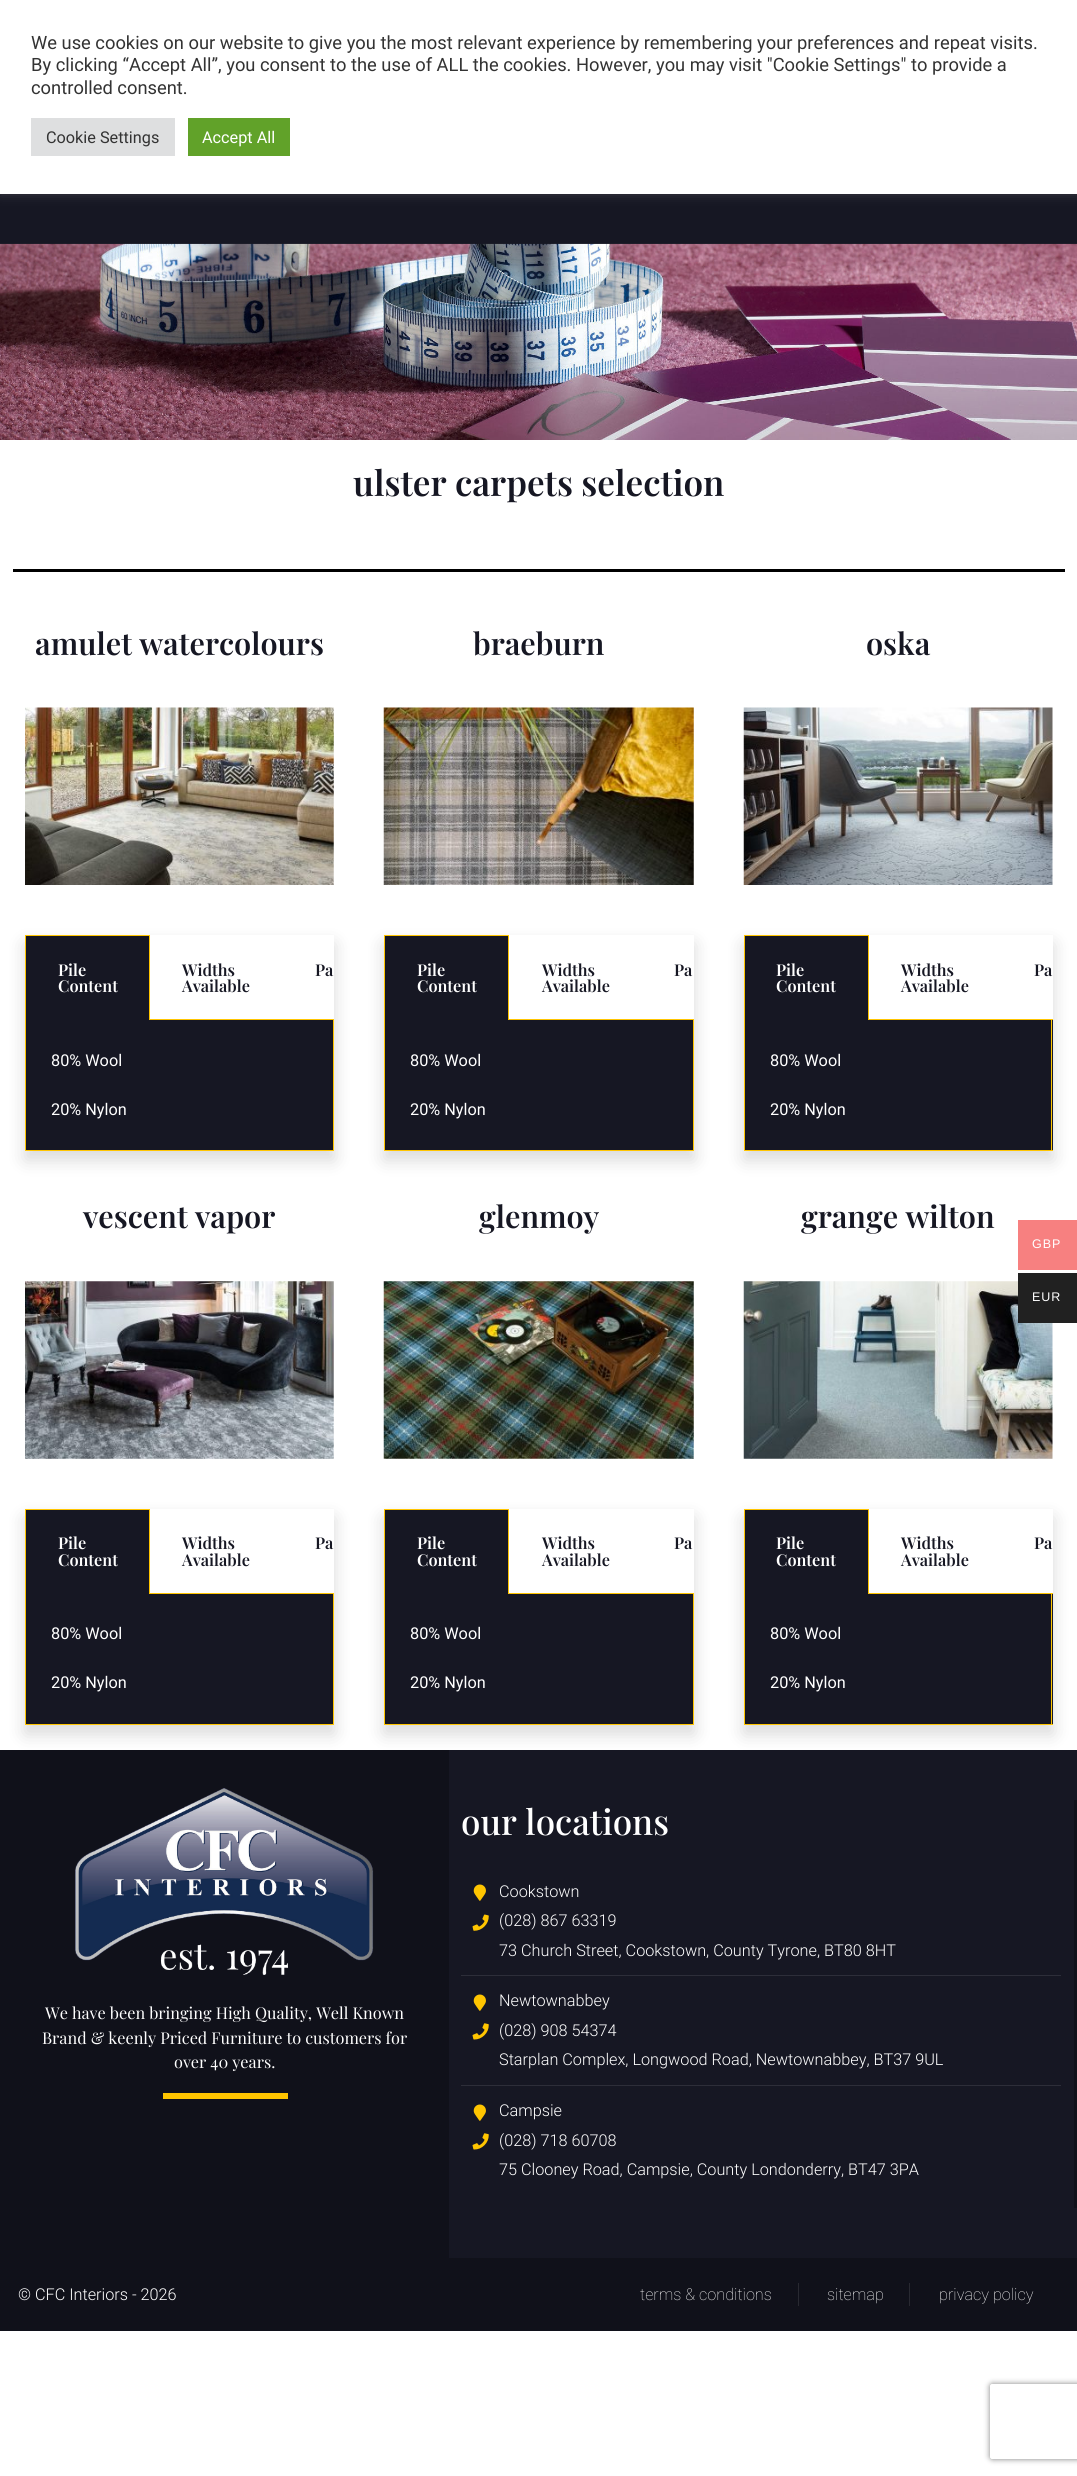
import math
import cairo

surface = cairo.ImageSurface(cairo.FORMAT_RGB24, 1077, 2476)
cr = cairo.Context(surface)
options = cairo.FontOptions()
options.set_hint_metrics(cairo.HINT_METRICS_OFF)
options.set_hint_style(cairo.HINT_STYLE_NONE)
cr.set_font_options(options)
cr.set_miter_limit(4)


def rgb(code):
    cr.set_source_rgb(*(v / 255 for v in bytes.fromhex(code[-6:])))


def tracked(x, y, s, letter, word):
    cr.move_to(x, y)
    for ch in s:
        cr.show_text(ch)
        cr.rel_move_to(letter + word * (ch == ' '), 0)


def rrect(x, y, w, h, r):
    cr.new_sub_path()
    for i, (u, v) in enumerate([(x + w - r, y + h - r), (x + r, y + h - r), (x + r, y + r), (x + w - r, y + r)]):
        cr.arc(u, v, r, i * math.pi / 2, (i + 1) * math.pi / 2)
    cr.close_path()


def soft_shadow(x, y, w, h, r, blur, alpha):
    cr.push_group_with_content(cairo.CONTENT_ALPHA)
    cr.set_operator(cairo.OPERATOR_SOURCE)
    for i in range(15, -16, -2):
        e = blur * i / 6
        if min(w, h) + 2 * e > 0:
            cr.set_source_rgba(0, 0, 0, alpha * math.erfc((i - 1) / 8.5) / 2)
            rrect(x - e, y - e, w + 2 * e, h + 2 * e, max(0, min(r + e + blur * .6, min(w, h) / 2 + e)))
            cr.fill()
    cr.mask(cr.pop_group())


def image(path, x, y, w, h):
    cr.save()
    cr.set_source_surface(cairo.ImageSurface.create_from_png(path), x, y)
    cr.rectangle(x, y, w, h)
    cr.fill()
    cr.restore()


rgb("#ffffff")
cr.paint()
rgb("#161723")
cr.rectangle(0, 194, 1077, 50)
cr.fill()
rgb("#acabab")
soft_shadow(0, -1, 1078, 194, 0, 6, 0.3)
for x, y, w, h, color in [
    (0, 0, 1077, 194, "#ffffff"),
    (31, 118, 144, 38, "#dedfe0"),
    (188, 118, 102, 38, "#61a229"),
]:
    rgb(color)
    cr.rectangle(x, y, w, h)
    cr.fill()
image("img/1.png", 0, 243, 1077, 197)
rgb("#000000")
cr.rectangle(13, 569, 1052, 3)
cr.fill()
image("img/2.png", 25, 707, 309, 178)
cr.save()
cr.set_fill_rule(cairo.FILL_RULE_EVEN_ODD)
cr.new_path()
cr.move_to(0, 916)
cr.line_to(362, 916)
cr.line_to(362, 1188)
cr.line_to(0, 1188)
cr.close_path()
cr.move_to(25, 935)
cr.line_to(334, 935)
cr.line_to(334, 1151)
cr.line_to(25, 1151)
cr.close_path()
cr.clip()
rgb("#000000")
soft_shadow(25, 944, 309, 216, 0, 9, 0.15)
cr.restore()
for x, y, w, h, color in [
    (26, 936, 123, 84, "#161723"),
    (25, 935, 125, 1, "#ffc500"),
    (149, 935, 1, 85, "#ffc500"),
    (25, 935, 1, 85, "#ffc500"),
    (149, 1019, 185, 1, "#ffc500"),
    (26, 1020, 307, 130, "#161723"),
    (333, 1020, 1, 131, "#ffc500"),
    (25, 1150, 309, 1, "#ffc500"),
    (25, 1020, 1, 131, "#ffc500"),
]:
    rgb(color)
    cr.rectangle(x, y, w, h)
    cr.fill()
image("img/3.png", 383, 707, 311, 178)
cr.save()
cr.set_fill_rule(cairo.FILL_RULE_EVEN_ODD)
cr.new_path()
cr.move_to(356, 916)
cr.line_to(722, 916)
cr.line_to(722, 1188)
cr.line_to(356, 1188)
cr.close_path()
cr.move_to(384, 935)
cr.line_to(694, 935)
cr.line_to(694, 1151)
cr.line_to(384, 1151)
cr.close_path()
cr.clip()
rgb("#000000")
soft_shadow(384, 944, 310, 216, 0, 9, 0.15)
cr.restore()
for x, y, w, h, color in [
    (385, 936, 123, 84, "#161723"),
    (384, 935, 125, 1, "#ffc500"),
    (508, 935, 1, 85, "#ffc500"),
    (384, 935, 1, 85, "#ffc500"),
    (508, 1019, 186, 1, "#ffc500"),
    (385, 1020, 308, 130, "#161723"),
    (693, 1020, 1, 131, "#ffc500"),
    (384, 1150, 310, 1, "#ffc500"),
    (384, 1020, 1, 131, "#ffc500"),
]:
    rgb(color)
    cr.rectangle(x, y, w, h)
    cr.fill()
image("img/4.png", 743, 707, 310, 178)
cr.save()
cr.set_fill_rule(cairo.FILL_RULE_EVEN_ODD)
cr.new_path()
cr.move_to(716, 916)
cr.line_to(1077, 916)
cr.line_to(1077, 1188)
cr.line_to(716, 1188)
cr.close_path()
cr.move_to(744, 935)
cr.line_to(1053, 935)
cr.line_to(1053, 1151)
cr.line_to(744, 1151)
cr.close_path()
cr.clip()
rgb("#000000")
soft_shadow(744, 944, 309, 216, 0, 9, 0.15)
cr.restore()
for x, y, w, h, color in [
    (745, 936, 123, 84, "#161723"),
    (744, 935, 125, 1, "#ffc500"),
    (868, 935, 1, 85, "#ffc500"),
    (744, 935, 1, 85, "#ffc500"),
    (868, 1019, 185, 1, "#ffc500"),
    (745, 1020, 308, 130, "#161723"),
    (1051, 1020, 1, 131, "#ffc500"),
    (744, 1150, 309, 1, "#ffc500"),
    (744, 1020, 1, 131, "#ffc500"),
]:
    rgb(color)
    cr.rectangle(x, y, w, h)
    cr.fill()
image("img/5.png", 25, 1281, 309, 178)
cr.save()
cr.set_fill_rule(cairo.FILL_RULE_EVEN_ODD)
cr.new_path()
cr.move_to(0, 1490)
cr.line_to(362, 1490)
cr.line_to(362, 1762)
cr.line_to(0, 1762)
cr.close_path()
cr.move_to(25, 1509)
cr.line_to(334, 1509)
cr.line_to(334, 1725)
cr.line_to(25, 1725)
cr.close_path()
cr.clip()
rgb("#000000")
soft_shadow(25, 1518, 309, 216, 0, 9, 0.15)
cr.restore()
for x, y, w, h, color in [
    (26, 1510, 123, 84, "#161723"),
    (25, 1509, 125, 1, "#ffc500"),
    (149, 1509, 1, 85, "#ffc500"),
    (25, 1509, 1, 85, "#ffc500"),
    (149, 1593, 185, 1, "#ffc500"),
    (26, 1594, 307, 130, "#161723"),
    (333, 1594, 1, 131, "#ffc500"),
    (25, 1724, 309, 1, "#ffc500"),
    (25, 1594, 1, 131, "#ffc500"),
]:
    rgb(color)
    cr.rectangle(x, y, w, h)
    cr.fill()
image("img/6.png", 383, 1281, 311, 178)
rgb("#161723")
cr.rectangle(449, 1750, 628, 508)
cr.fill()
cr.save()
cr.set_fill_rule(cairo.FILL_RULE_EVEN_ODD)
cr.new_path()
cr.move_to(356, 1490)
cr.line_to(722, 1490)
cr.line_to(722, 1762)
cr.line_to(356, 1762)
cr.close_path()
cr.move_to(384, 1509)
cr.line_to(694, 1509)
cr.line_to(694, 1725)
cr.line_to(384, 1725)
cr.close_path()
cr.clip()
rgb("#000000")
soft_shadow(384, 1518, 310, 216, 0, 9, 0.15)
cr.restore()
for x, y, w, h, color in [
    (385, 1510, 123, 84, "#161723"),
    (384, 1509, 125, 1, "#ffc500"),
    (508, 1509, 1, 85, "#ffc500"),
    (384, 1509, 1, 85, "#ffc500"),
    (508, 1593, 186, 1, "#ffc500"),
    (385, 1594, 308, 130, "#161723"),
    (693, 1594, 1, 131, "#ffc500"),
    (384, 1724, 310, 1, "#ffc500"),
    (384, 1594, 1, 131, "#ffc500"),
]:
    rgb(color)
    cr.rectangle(x, y, w, h)
    cr.fill()
image("img/7.png", 743, 1281, 310, 178)
cr.save()
cr.set_fill_rule(cairo.FILL_RULE_EVEN_ODD)
cr.new_path()
cr.move_to(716, 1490)
cr.line_to(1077, 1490)
cr.line_to(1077, 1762)
cr.line_to(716, 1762)
cr.close_path()
cr.move_to(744, 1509)
cr.line_to(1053, 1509)
cr.line_to(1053, 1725)
cr.line_to(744, 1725)
cr.close_path()
cr.clip()
rgb("#000000")
soft_shadow(744, 1518, 309, 216, 0, 9, 0.15)
cr.restore()
for x, y, w, h, color in [
    (745, 1510, 123, 84, "#161723"),
    (744, 1509, 125, 1, "#ffc500"),
    (868, 1509, 1, 85, "#ffc500"),
    (744, 1509, 1, 85, "#ffc500"),
    (868, 1593, 185, 1, "#ffc500"),
    (745, 1594, 308, 130, "#161723"),
    (1051, 1594, 1, 131, "#ffc500"),
    (744, 1724, 309, 1, "#ffc500"),
    (744, 1594, 1, 131, "#ffc500"),
    (1018, 1220, 59, 50, "#f78080"),
    (1018, 1273, 59, 50, "#212121"),
    (0, 1750, 449, 508, "#10111a"),
]:
    rgb(color)
    cr.rectangle(x, y, w, h)
    cr.fill()
image("img/8.png", 75, 1788, 299, 187)
for x, y, w, h, color in [
    (163, 2093, 125, 6, "#ffc500"),
    (1074, 1800, 3, 408, "#10111a"),
    (461, 1975, 600, 1, "#2d2e39"),
]:
    rgb(color)
    cr.rectangle(x, y, w, h)
    cr.fill()
image("img/9.png", 473, 1884, 13, 17)
image("img/10.png", 472, 1914, 17, 17)
cr.rectangle(461, 2085, 600, 1)
cr.fill()
image("img/9.png", 473, 1994, 13, 17)
image("img/11.png", 472, 2023, 17, 17)
image("img/9.png", 473, 2104, 13, 17)
image("img/11.png", 472, 2133, 17, 17)
for x, y, w, h, color in [
    (0, 2258, 1077, 73, "#10111a"),
    (798, 2283, 1, 23, "#282931"),
    (909, 2283, 1, 23, "#282931"),
]:
    rgb(color)
    cr.rectangle(x, y, w, h)
    cr.fill()
cr.save()
cr.set_fill_rule(cairo.FILL_RULE_EVEN_ODD)
cr.new_path()
cr.move_to(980, 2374)
cr.line_to(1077, 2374)
cr.line_to(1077, 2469)
cr.line_to(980, 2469)
cr.close_path()
cr.move_to(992.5, 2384)
cr.line_to(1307.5, 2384)
cr.curve_to(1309, 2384, 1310, 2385, 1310, 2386.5)
cr.line_to(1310, 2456.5)
cr.curve_to(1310, 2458, 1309, 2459, 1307.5, 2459)
cr.line_to(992.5, 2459)
cr.curve_to(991, 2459, 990, 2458, 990, 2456.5)
cr.line_to(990, 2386.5)
cr.curve_to(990, 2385, 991, 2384, 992.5, 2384)
cr.close_path()
cr.clip()
rgb("#808080")
soft_shadow(990, 2384, 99, 75, 2.5, 3, 1)
cr.restore()
cr.select_font_face("Roboto")
cr.set_font_size(18.33)
rgb("#333333")
for x, y, s in [
    (31, 49, "We use cookies on our website to give you the most relevant experience by remembering your preferences and repeat visits."),
    (31, 71, "By clicking “Accept All”, you consent to the use of ALL the cookies. However, you may visit \"Cookie Settings\" to provide a"),
    (31, 94, "controlled consent."),
]:
    cr.move_to(x, y)
    cr.show_text(s)
cr.set_font_size(16.25)
cr.move_to(46, 143)
cr.show_text("Cookie Settings")
rgb("#ffffff")
cr.move_to(202, 143)
cr.show_text("Accept All")
cr.select_font_face("Playfair Display SemiBold")
cr.set_font_size(35)
rgb("#161723")
cr.move_to(353, 496)
cr.show_text("ulster carpets selection")
cr.set_font_size(30.6)
cr.move_to(35, 655)
cr.show_text("amulet watercolours")
cr.set_font_size(16.25)
rgb("#ffffff")
cr.move_to(58, 976)
cr.show_text("Pile")
cr.move_to(58, 992)
cr.show_text("Content")
rgb("#161723")
for x, y, s in [
    (182, 976, "Widths"),
    (182, 992, "Available"),
    (315, 976, "Pa"),
]:
    cr.move_to(x, y)
    cr.show_text(s)
cr.select_font_face("Roboto")
rgb("#ffffff")
cr.move_to(51, 1066)
cr.show_text("80% Wool")
cr.move_to(51, 1115)
cr.show_text("20% Nylon")
cr.select_font_face("Playfair Display SemiBold")
cr.set_font_size(30.6)
rgb("#161723")
cr.move_to(473, 655)
cr.show_text("braeburn")
cr.set_font_size(16.25)
rgb("#ffffff")
cr.move_to(417, 976)
cr.show_text("Pile")
cr.move_to(417, 992)
cr.show_text("Content")
rgb("#161723")
for x, y, s in [
    (542, 976, "Widths"),
    (542, 992, "Available"),
    (674, 976, "Pa"),
]:
    cr.move_to(x, y)
    cr.show_text(s)
cr.select_font_face("Roboto")
rgb("#ffffff")
cr.move_to(410, 1066)
cr.show_text("80% Wool")
cr.move_to(410, 1115)
cr.show_text("20% Nylon")
cr.select_font_face("Playfair Display SemiBold")
cr.set_font_size(30.6)
rgb("#161723")
cr.move_to(866, 655)
cr.show_text("oska")
cr.set_font_size(16.25)
rgb("#ffffff")
cr.move_to(776, 976)
cr.show_text("Pile")
cr.move_to(776, 992)
cr.show_text("Content")
rgb("#161723")
for x, y, s in [
    (901, 976, "Widths"),
    (901, 992, "Available"),
    (1034, 976, "Pa"),
]:
    cr.move_to(x, y)
    cr.show_text(s)
cr.select_font_face("Roboto")
rgb("#ffffff")
cr.move_to(770, 1066)
cr.show_text("80% Wool")
cr.move_to(770, 1115)
cr.show_text("20% Nylon")
cr.select_font_face("Playfair Display SemiBold")
cr.set_font_size(30.6)
rgb("#161723")
cr.move_to(83, 1228)
cr.show_text("vescent vapor")
cr.set_font_size(16.25)
rgb("#ffffff")
cr.move_to(58, 1549)
cr.show_text("Pile")
cr.move_to(58, 1566)
cr.show_text("Content")
rgb("#161723")
for x, y, s in [
    (182, 1549, "Widths"),
    (182, 1566, "Available"),
    (315, 1549, "Pa"),
]:
    cr.move_to(x, y)
    cr.show_text(s)
cr.select_font_face("Roboto")
rgb("#ffffff")
cr.move_to(51, 1639)
cr.show_text("80% Wool")
cr.move_to(51, 1688)
cr.show_text("20% Nylon")
cr.select_font_face("Playfair Display SemiBold")
cr.set_font_size(30.6)
rgb("#161723")
cr.move_to(479, 1228)
cr.show_text("glenmoy")
cr.set_font_size(16.25)
rgb("#ffffff")
cr.move_to(417, 1549)
cr.show_text("Pile")
cr.move_to(417, 1566)
cr.show_text("Content")
rgb("#161723")
for x, y, s in [
    (542, 1549, "Widths"),
    (542, 1566, "Available"),
    (674, 1549, "Pa"),
]:
    cr.move_to(x, y)
    cr.show_text(s)
cr.select_font_face("Roboto")
rgb("#ffffff")
cr.move_to(410, 1639)
cr.show_text("80% Wool")
cr.move_to(410, 1688)
cr.show_text("20% Nylon")
cr.select_font_face("Playfair Display SemiBold")
cr.set_font_size(30.6)
rgb("#161723")
cr.move_to(801, 1228)
cr.show_text("grange wilton")
cr.set_font_size(16.25)
rgb("#ffffff")
cr.move_to(776, 1549)
cr.show_text("Pile")
cr.move_to(776, 1566)
cr.show_text("Content")
rgb("#161723")
for x, y, s in [
    (901, 1549, "Widths"),
    (901, 1566, "Available"),
    (1034, 1549, "Pa"),
]:
    cr.move_to(x, y)
    cr.show_text(s)
cr.select_font_face("Roboto")
rgb("#ffffff")
cr.move_to(770, 1639)
cr.show_text("80% Wool")
cr.move_to(770, 1688)
cr.show_text("20% Nylon")
cr.select_font_face("Liberation Sans")
cr.set_font_size(12.5)
tracked(1032, 1248, "GBP", 1, 0)
tracked(1032, 1301, "EUR", 1, 0)
cr.select_font_face("Playfair Display")
cr.set_font_size(16.25)
for x, y, s in [
    (45, 2019, "We have been bringing High Quality, Well Known"),
    (42, 2044, "Brand & keenly Priced Furniture to customers for"),
    (174, 2068, "over 40 years."),
]:
    cr.move_to(x, y)
    cr.show_text(s)
cr.select_font_face("Playfair Display Medium")
cr.set_font_size(35)
cr.move_to(461, 1835)
cr.show_text("our locations")
cr.select_font_face("Roboto Light")
cr.set_font_size(16.25)
for x, y, s in [
    (499, 1897, "Cookstown"),
    (499, 1926, "(028) 867 63319"),
    (499, 1956, "73 Church Street, Cookstown, County Tyrone, BT80 8HT"),
    (499, 2006, "Newtownabbey"),
    (499, 2036, "(028) 908 54374"),
    (499, 2065, "Starplan Complex, Longwood Road, Newtownabbey, BT37 9UL"),
    (499, 2116, "Campsie"),
    (499, 2146, "(028) 718 60708"),
    (499, 2175, "75 Clooney Road, Campsie, County Londonderry, BT47 3PA"),
    (18, 2300, "© CFC Interiors - 2026"),
]:
    cr.move_to(x, y)
    cr.show_text(s)
cr.select_font_face("Roboto Thin")
for x, y, s in [
    (640, 2300, "terms & conditions"),
    (827, 2300, "sitemap"),
    (939, 2300, "privacy policy"),
]:
    cr.move_to(x, y)
    cr.show_text(s)
surface.write_to_png("page.png")
